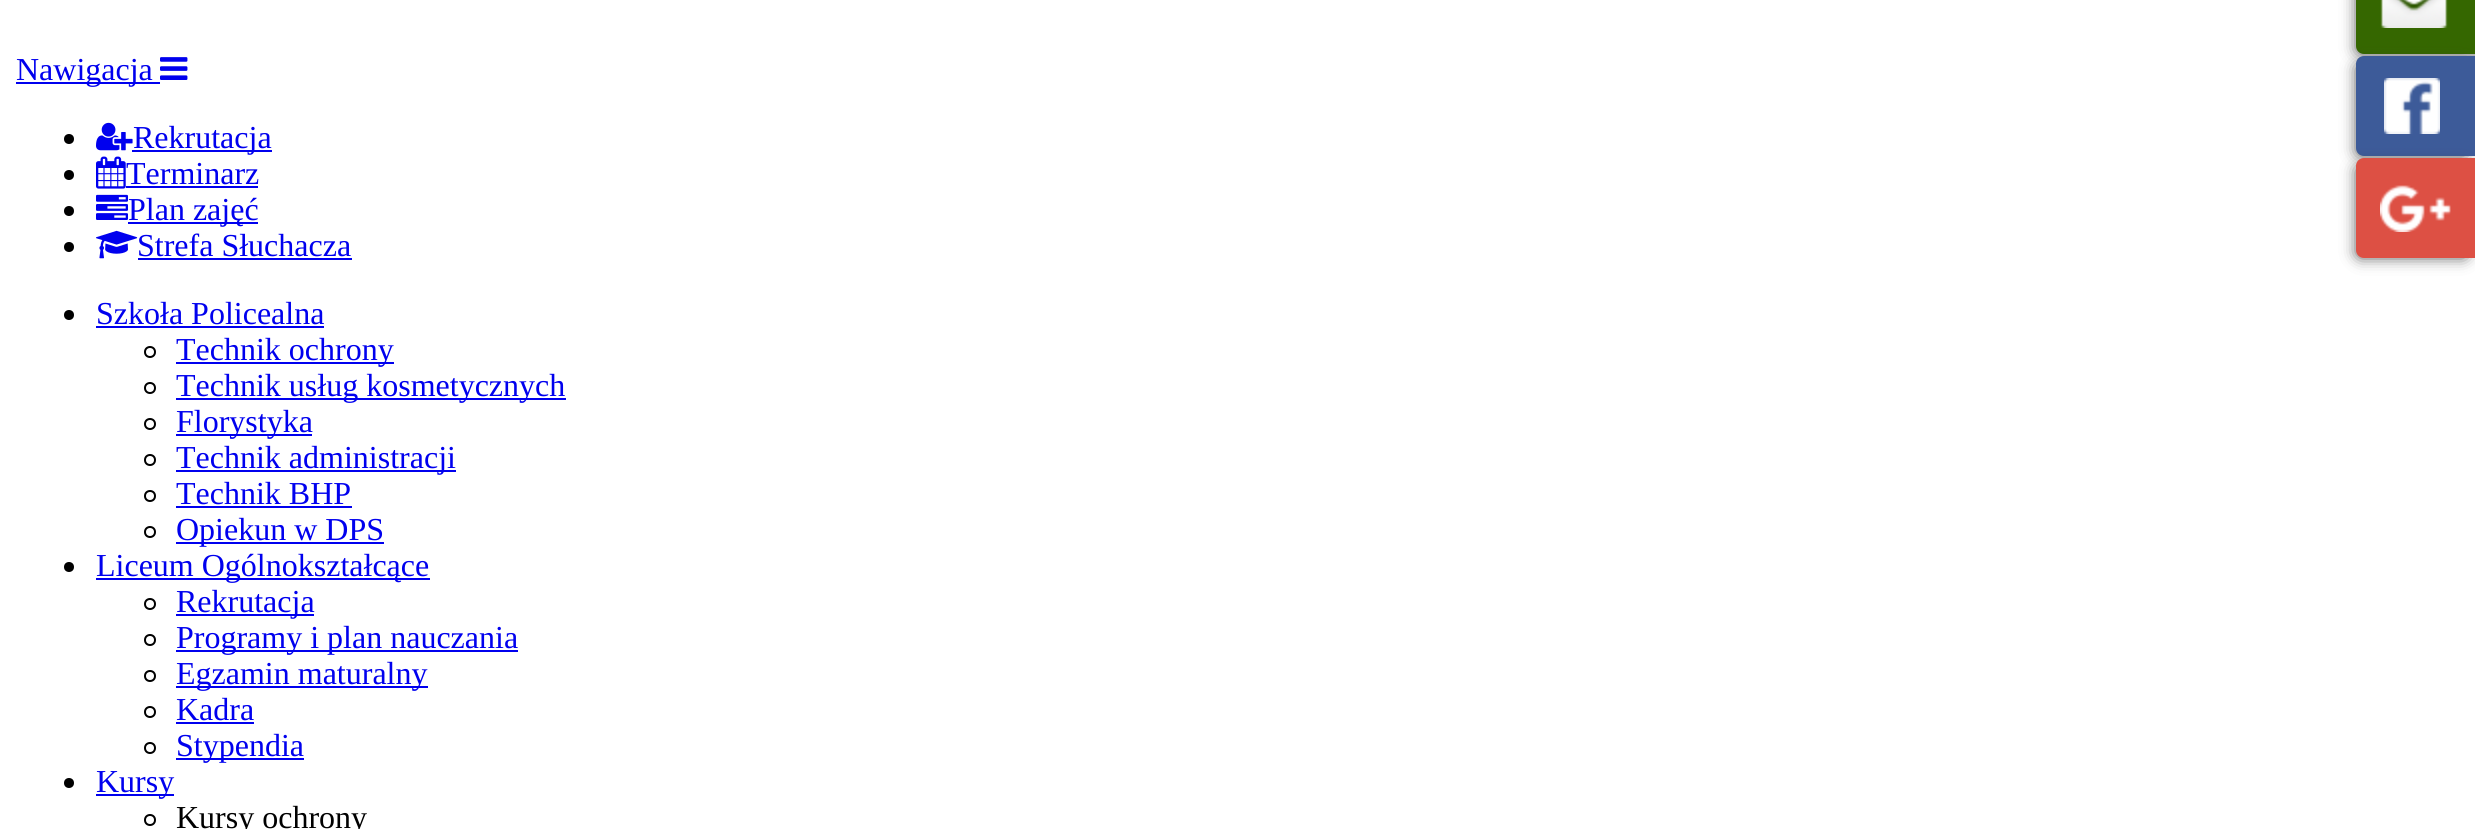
import math
import cairo

surface = cairo.ImageSurface(cairo.FORMAT_RGB24, 2475, 829)
cr = cairo.Context(surface)
options = cairo.FontOptions()
options.set_hint_metrics(cairo.HINT_METRICS_OFF)
options.set_hint_style(cairo.HINT_STYLE_NONE)
cr.set_font_options(options)
cr.set_miter_limit(4)


def rgb(code):
    cr.set_source_rgb(*(v / 255 for v in bytes.fromhex(code[-6:])))


def rrect(x, y, w, h, r):
    cr.new_sub_path()
    for i, (u, v) in enumerate([(x + w - r, y + h - r), (x + r, y + h - r), (x + r, y + r), (x + w - r, y + r)]):
        cr.arc(u, v, r, i * math.pi / 2, (i + 1) * math.pi / 2)
    cr.close_path()


def soft_shadow(x, y, w, h, r, blur, alpha):
    cr.push_group_with_content(cairo.CONTENT_ALPHA)
    cr.set_operator(cairo.OPERATOR_SOURCE)
    for i in range(15, -16, -2):
        e = blur * i / 6
        if min(w, h) + 2 * e > 0:
            cr.set_source_rgba(0, 0, 0, alpha * math.erfc((i - 1) / 8.5) / 2)
            rrect(x - e, y - e, w + 2 * e, h + 2 * e, max(0, min(r + e + blur * .6, min(w, h) / 2 + e)))
            cr.fill()
    cr.mask(cr.pop_group())


def image(path, x, y, w, h):
    cr.save()
    cr.set_source_surface(cairo.ImageSurface.create_from_png(path), x, y)
    cr.rectangle(x, y, w, h)
    cr.fill()
    cr.restore()


rgb("#ffffff")
cr.paint()
rgb("#0000ee")
cr.rectangle(16, 82, 136, 2)
cr.fill()
cr.rectangle(152, 82, 8, 2)
cr.fill()
image("img/1.png", 160, 57, 28, 23)
rgb("#000000")
cr.arc(69, 139, 5, 0, 2 * math.pi)
cr.fill()
image("img/2.png", 96, 122, 37, 29)
rgb("#0000ee")
cr.rectangle(132, 150, 140, 2)
cr.fill()
rgb("#000000")
cr.arc(69, 175, 5, 0, 2 * math.pi)
cr.fill()
image("img/3.png", 96, 156, 30, 33)
rgb("#0000ee")
cr.rectangle(126, 186, 132, 2)
cr.fill()
rgb("#000000")
cr.arc(69, 211, 5, 0, 2 * math.pi)
cr.fill()
image("img/4.png", 96, 194, 32, 26)
rgb("#0000ee")
cr.rectangle(128, 222, 130, 2)
cr.fill()
rgb("#000000")
cr.arc(69, 247, 5, 0, 2 * math.pi)
cr.fill()
image("img/5.png", 96, 230, 42, 29)
rgb("#0000ee")
cr.rectangle(138, 258, 214, 2)
cr.fill()
rgb("#000000")
cr.arc(69, 315, 5, 0, 2 * math.pi)
cr.fill()
rgb("#0000ee")
cr.rectangle(96, 326, 228, 2)
cr.fill()
cr.arc(150, 352, 5, 0, 2 * math.pi)
rgb("#000000")
cr.stroke()
rgb("#0000ee")
cr.rectangle(176, 362, 218, 2)
cr.fill()
cr.arc(150, 388, 5, 0, 2 * math.pi)
rgb("#000000")
cr.stroke()
rgb("#0000ee")
cr.rectangle(176, 398, 390, 2)
cr.fill()
cr.arc(150, 424, 5, 0, 2 * math.pi)
rgb("#000000")
cr.stroke()
rgb("#0000ee")
cr.rectangle(176, 434, 136, 2)
cr.fill()
cr.arc(150, 460, 5, 0, 2 * math.pi)
rgb("#000000")
cr.stroke()
rgb("#0000ee")
cr.rectangle(176, 470, 280, 2)
cr.fill()
cr.arc(150, 496, 5, 0, 2 * math.pi)
rgb("#000000")
cr.stroke()
rgb("#0000ee")
cr.rectangle(176, 506, 176, 2)
cr.fill()
cr.arc(150, 532, 5, 0, 2 * math.pi)
rgb("#000000")
cr.stroke()
rgb("#0000ee")
cr.rectangle(176, 542, 208, 2)
cr.fill()
rgb("#000000")
cr.arc(69, 567, 5, 0, 2 * math.pi)
cr.fill()
rgb("#0000ee")
cr.rectangle(96, 578, 334, 2)
cr.fill()
cr.arc(150, 604, 5, 0, 2 * math.pi)
rgb("#000000")
cr.stroke()
rgb("#0000ee")
cr.rectangle(176, 614, 138, 2)
cr.fill()
cr.arc(150, 640, 5, 0, 2 * math.pi)
rgb("#000000")
cr.stroke()
rgb("#0000ee")
cr.rectangle(176, 650, 342, 2)
cr.fill()
cr.arc(150, 676, 5, 0, 2 * math.pi)
rgb("#000000")
cr.stroke()
rgb("#0000ee")
cr.rectangle(176, 686, 252, 2)
cr.fill()
cr.arc(150, 712, 5, 0, 2 * math.pi)
rgb("#000000")
cr.stroke()
rgb("#0000ee")
cr.rectangle(176, 722, 78, 2)
cr.fill()
cr.arc(150, 748, 5, 0, 2 * math.pi)
rgb("#000000")
cr.stroke()
rgb("#0000ee")
cr.rectangle(176, 758, 128, 2)
cr.fill()
rgb("#000000")
cr.arc(69, 783, 5, 0, 2 * math.pi)
cr.fill()
rgb("#0000ee")
cr.rectangle(96, 794, 78, 2)
cr.fill()
cr.arc(150, 820, 5, 0, 2 * math.pi)
rgb("#000000")
cr.stroke()
rgb("#333333")
soft_shadow(2358, -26, 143, 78, 2, 8, 1)
rgb("#356700")
cr.new_path()
cr.move_to(2364, -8)
cr.line_to(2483, -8)
cr.line_to(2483, 54)
cr.line_to(2364, 54)
cr.curve_to(2359.5, 54, 2356, 50.5, 2356, 46)
cr.line_to(2356, 0)
cr.curve_to(2356, -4.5, 2359.5, -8, 2364, -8)
cr.close_path()
cr.fill()
image("img/6.png", 2380, 0, 68, 28)
rgb("#333333")
soft_shadow(2358, 66, 108, 88, 2, 8, 1)
rgb("#3d5b99")
cr.new_path()
cr.move_to(2364, 56)
cr.line_to(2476, 56)
cr.line_to(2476, 156)
cr.line_to(2364, 156)
cr.curve_to(2359.5, 156, 2356, 152.5, 2356, 148)
cr.line_to(2356, 64)
cr.curve_to(2356, 59.5, 2359.5, 56, 2364, 56)
cr.close_path()
cr.fill()
image("img/7.png", 2384, 78, 56, 56)
rgb("#333333")
soft_shadow(2358, 168, 108, 88, 2, 8, 1)
rgb("#dd5044")
cr.new_path()
cr.move_to(2364, 158)
cr.line_to(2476, 158)
cr.line_to(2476, 258)
cr.line_to(2364, 258)
cr.curve_to(2359.5, 258, 2356, 254.5, 2356, 250)
cr.line_to(2356, 166)
cr.curve_to(2356, 161.5, 2359.5, 158, 2364, 158)
cr.close_path()
cr.fill()
image("img/8.png", 2380, 185, 71, 47)
cr.select_font_face("Liberation Serif")
cr.set_font_size(32)
rgb("#0000ee")
for x, y, s in [
    (16, 80, "Nawigacja"),
    (133, 148, "Rekrutacja"),
    (126, 184, "Terminarz"),
    (128, 220, "Plan zajęć"),
    (137, 256, "Strefa Słuchacza"),
    (96, 324, "Szkoła Policealna"),
    (176, 360, "Technik ochrony"),
    (176, 396, "Technik usług kosmetycznych"),
    (176, 432, "Florystyka"),
    (176, 468, "Technik administracji"),
    (176, 504, "Technik BHP"),
    (176, 540, "Opiekun w DPS"),
    (96, 576, "Liceum Ogólnokształcące"),
    (176, 612, "Rekrutacja"),
    (176, 648, "Programy i plan nauczania"),
    (176, 684, "Egzamin maturalny"),
    (176, 720, "Kadra"),
    (176, 756, "Stypendia"),
    (96, 792, "Kursy"),
]:
    cr.move_to(x, y)
    cr.show_text(s)
rgb("#000000")
cr.move_to(176, 828)
cr.show_text("Kursy ochrony")
surface.write_to_png("page.png")
